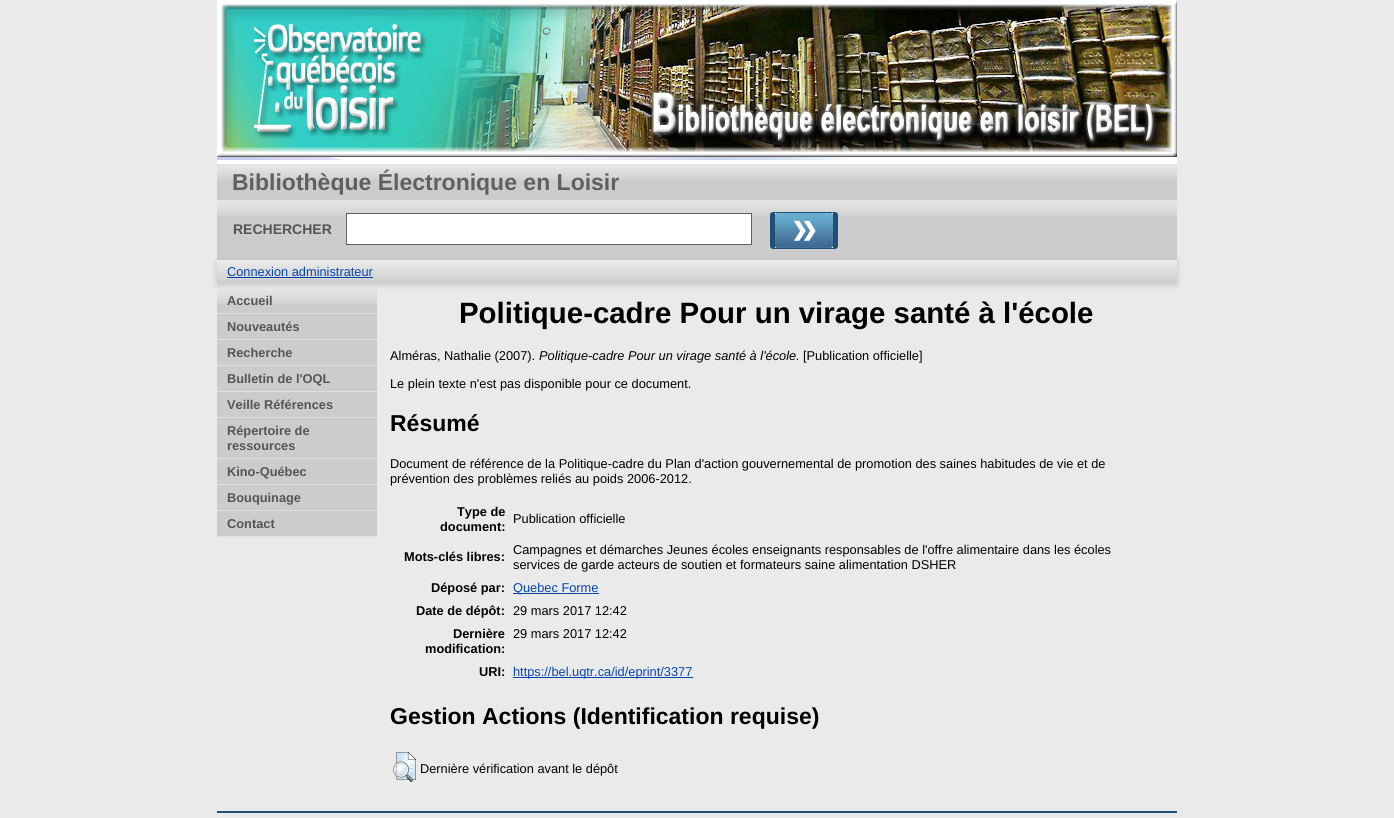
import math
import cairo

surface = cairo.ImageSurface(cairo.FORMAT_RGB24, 1394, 818)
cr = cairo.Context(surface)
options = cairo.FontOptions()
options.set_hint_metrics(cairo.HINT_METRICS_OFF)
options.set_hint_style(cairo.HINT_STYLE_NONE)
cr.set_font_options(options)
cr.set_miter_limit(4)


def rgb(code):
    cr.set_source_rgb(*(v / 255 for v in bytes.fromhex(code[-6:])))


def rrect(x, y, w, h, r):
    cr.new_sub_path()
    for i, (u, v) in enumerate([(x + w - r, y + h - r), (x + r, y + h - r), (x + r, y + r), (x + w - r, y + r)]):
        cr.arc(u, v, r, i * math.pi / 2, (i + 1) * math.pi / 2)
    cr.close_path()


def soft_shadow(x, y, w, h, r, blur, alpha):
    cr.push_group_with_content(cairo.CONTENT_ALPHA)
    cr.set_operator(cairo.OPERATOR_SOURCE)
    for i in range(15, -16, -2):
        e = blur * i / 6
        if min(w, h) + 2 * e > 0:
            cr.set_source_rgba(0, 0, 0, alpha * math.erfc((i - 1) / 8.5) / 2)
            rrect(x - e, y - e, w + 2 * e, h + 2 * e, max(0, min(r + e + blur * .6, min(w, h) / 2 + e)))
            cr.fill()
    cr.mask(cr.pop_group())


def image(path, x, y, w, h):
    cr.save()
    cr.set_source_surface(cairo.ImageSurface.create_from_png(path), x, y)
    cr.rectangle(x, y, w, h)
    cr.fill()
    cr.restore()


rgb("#eaeaea")
cr.paint()
rgb("#ffffff")
cr.rectangle(217, 157, 960, 7)
cr.fill()
image("img/1.png", 217, 157, 631, 3)
image("img/2.png", 217, 0, 960, 157)
rgb("#cccccc")
cr.rectangle(217, 180, 960, 20)
cr.fill()
image("img/3.png", 217, 164, 960, 16)
cr.rectangle(217, 216, 960, 44)
cr.fill()
image("img/3.png", 217, 200, 960, 16)
rgb("#ffffff")
cr.rectangle(346.5, 213.5, 405, 31)
cr.fill_preserve()
rgb("#606060")
cr.set_line_width(1)
cr.stroke()
rgb("#1f4f76")
rrect(770, 212, 68, 37, 3)
cr.fill()
image("img/4.png", 775, 213, 58, 35)
rgb("#646464")
soft_shadow(217, 262, 960, 23, 0, 3, 0.3)
rgb("#cccccc")
cr.rectangle(217, 260, 960, 23)
cr.fill()
image("img/5.png", 217, 260, 960, 22)
rgb("#0645ad")
cr.rectangle(227, 277, 146, 1)
cr.fill()
rgb("#cccccc")
cr.rectangle(217, 304, 160, 232)
cr.fill()
image("img/6.png", 217, 288, 160, 16)
for x, y, w, h, color in [
    (217, 313, 160, 1, "#dfdfdf"),
    (217, 339, 160, 1, "#dfdfdf"),
    (217, 365, 160, 1, "#dfdfdf"),
    (217, 391, 160, 1, "#dfdfdf"),
    (217, 417, 160, 1, "#dfdfdf"),
    (217, 458, 160, 1, "#dfdfdf"),
    (217, 484, 160, 1, "#dfdfdf"),
    (217, 510, 160, 1, "#dfdfdf"),
    (217, 536, 160, 1, "#dfdfdf"),
    (513, 593, 86, 1, "#0645ad"),
    (513, 677, 180, 1, "#0645ad"),
]:
    rgb(color)
    cr.rectangle(x, y, w, h)
    cr.fill()
image("img/7.png", 393, 752, 23, 30)
rgb("#204f76")
cr.rectangle(217, 811, 960, 2)
cr.fill()
cr.select_font_face("Liberation Sans", cairo.FONT_SLANT_NORMAL, cairo.FONT_WEIGHT_BOLD)
cr.set_font_size(23)
rgb("#606060")
cr.move_to(232, 190)
cr.show_text("Bibliothèque Électronique en Loisir")
cr.set_font_size(14)
rgb("#555555")
cr.move_to(233, 234)
cr.show_text("RECHERCHER")
cr.select_font_face("Liberation Sans")
cr.set_font_size(12.8)
rgb("#0645ad")
cr.move_to(227, 276)
cr.show_text("Connexion administrateur")
cr.select_font_face("Liberation Sans", cairo.FONT_SLANT_NORMAL, cairo.FONT_WEIGHT_BOLD)
rgb("#555555")
for x, y, s in [
    (227, 305, "Accueil"),
    (227, 331, "Nouveautés"),
    (227, 357, "Recherche"),
    (227, 383, "Bulletin de l'OQL"),
    (227, 409, "Veille Références"),
    (227, 435, "Répertoire de"),
    (227, 450, "ressources"),
    (227, 476, "Kino-Québec"),
    (227, 502, "Bouquinage"),
    (227, 528, "Contact"),
]:
    cr.move_to(x, y)
    cr.show_text(s)
cr.set_font_size(29.4)
rgb("#000000")
cr.move_to(459, 323)
cr.show_text("Politique-cadre Pour un virage santé à l'école")
cr.select_font_face("Liberation Sans")
cr.set_font_size(12.8)
cr.move_to(390, 360)
cr.show_text("Alméras, Nathalie (2007).")
cr.select_font_face("Liberation Sans", cairo.FONT_SLANT_ITALIC)
cr.move_to(539, 360)
cr.show_text("Politique-cadre Pour un virage santé à l'école.")
cr.select_font_face("Liberation Sans")
cr.move_to(803, 360)
cr.show_text("[Publication officielle]")
cr.move_to(390, 388)
cr.show_text("Le plein texte n'est pas disponible pour ce document.")
cr.select_font_face("Liberation Sans", cairo.FONT_SLANT_NORMAL, cairo.FONT_WEIGHT_BOLD)
cr.set_font_size(23)
cr.move_to(390, 431)
cr.show_text("Résumé")
cr.select_font_face("Liberation Sans")
cr.set_font_size(12.8)
cr.move_to(390, 468)
cr.show_text("Document de référence de la Politique-cadre du Plan d'action gouvernemental de promotion des saines habitudes de vie et de")
cr.move_to(390, 483)
cr.show_text("prévention des problèmes reliés au poids 2006-2012.")
cr.select_font_face("Liberation Sans", cairo.FONT_SLANT_NORMAL, cairo.FONT_WEIGHT_BOLD)
cr.move_to(457, 516)
cr.show_text("Type de")
cr.move_to(440, 531)
cr.show_text("document:")
cr.select_font_face("Liberation Sans")
cr.move_to(513, 523)
cr.show_text("Publication officielle")
cr.select_font_face("Liberation Sans", cairo.FONT_SLANT_NORMAL, cairo.FONT_WEIGHT_BOLD)
cr.move_to(404, 561)
cr.show_text("Mots-clés libres:")
cr.select_font_face("Liberation Sans")
cr.move_to(513, 554)
cr.show_text("Campagnes et démarches Jeunes écoles enseignants responsables de l'offre alimentaire dans les écoles")
cr.move_to(513, 569)
cr.show_text("services de garde acteurs de soutien et formateurs saine alimentation DSHER")
cr.select_font_face("Liberation Sans", cairo.FONT_SLANT_NORMAL, cairo.FONT_WEIGHT_BOLD)
cr.move_to(431, 592)
cr.show_text("Déposé par:")
cr.select_font_face("Liberation Sans")
rgb("#0645ad")
cr.move_to(513, 592)
cr.show_text("Quebec Forme")
cr.select_font_face("Liberation Sans", cairo.FONT_SLANT_NORMAL, cairo.FONT_WEIGHT_BOLD)
rgb("#000000")
cr.move_to(416, 615)
cr.show_text("Date de dépôt:")
cr.select_font_face("Liberation Sans")
cr.move_to(513, 615)
cr.show_text("29 mars 2017 12:42")
cr.select_font_face("Liberation Sans", cairo.FONT_SLANT_NORMAL, cairo.FONT_WEIGHT_BOLD)
cr.move_to(453, 638)
cr.show_text("Dernière")
cr.move_to(425, 653)
cr.show_text("modification:")
cr.select_font_face("Liberation Sans")
cr.move_to(513, 638)
cr.show_text("29 mars 2017 12:42")
cr.select_font_face("Liberation Sans", cairo.FONT_SLANT_NORMAL, cairo.FONT_WEIGHT_BOLD)
cr.move_to(479, 676)
cr.show_text("URI:")
cr.select_font_face("Liberation Sans")
rgb("#0645ad")
cr.move_to(513, 676)
cr.show_text("https://bel.uqtr.ca/id/eprint/3377")
cr.select_font_face("Liberation Sans", cairo.FONT_SLANT_NORMAL, cairo.FONT_WEIGHT_BOLD)
cr.set_font_size(23)
rgb("#000000")
cr.move_to(390, 724)
cr.show_text("Gestion Actions (Identification requise)")
cr.select_font_face("Liberation Sans")
cr.set_font_size(12.8)
cr.move_to(420, 773)
cr.show_text("Dernière vérification avant le dépôt")
surface.write_to_png("page.png")
